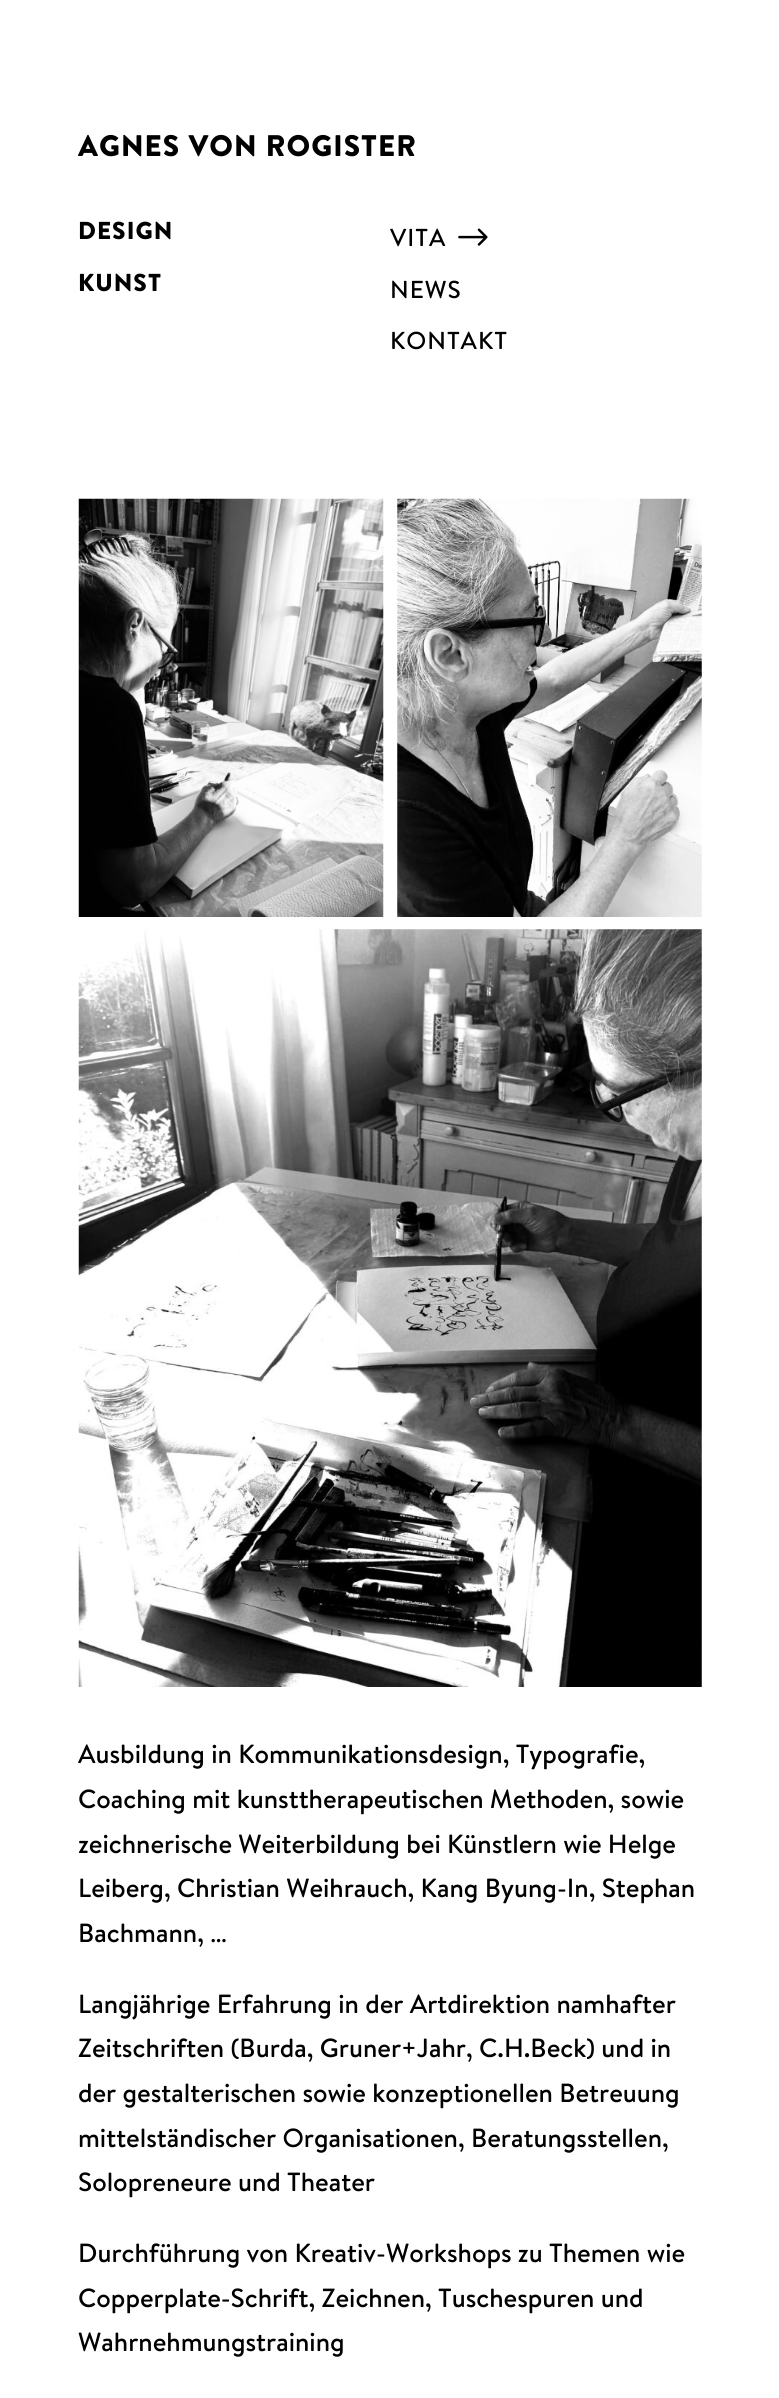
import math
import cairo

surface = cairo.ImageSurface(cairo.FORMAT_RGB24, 779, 2398)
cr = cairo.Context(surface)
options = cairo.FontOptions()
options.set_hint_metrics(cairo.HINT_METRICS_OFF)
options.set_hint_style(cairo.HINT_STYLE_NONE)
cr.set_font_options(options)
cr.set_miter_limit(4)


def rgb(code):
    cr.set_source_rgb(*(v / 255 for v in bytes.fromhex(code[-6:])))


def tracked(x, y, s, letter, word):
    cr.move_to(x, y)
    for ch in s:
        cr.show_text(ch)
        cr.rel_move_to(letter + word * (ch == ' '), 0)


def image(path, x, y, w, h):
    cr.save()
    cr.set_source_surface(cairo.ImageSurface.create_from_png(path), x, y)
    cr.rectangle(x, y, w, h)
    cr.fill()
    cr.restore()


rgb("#ffffff")
cr.paint()
image("img/1.png", 458, 228, 30, 18)
image("img/2.png", 78, 498, 306, 419)
image("img/3.png", 397, 498, 305, 419)
image("img/4.png", 78, 929, 624, 758)
cr.select_font_face("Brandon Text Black")
cr.set_font_size(29.75)
rgb("#000000")
tracked(78, 156, "AGNES VON ROGISTER", 1, 0)
cr.set_font_size(24.5)
tracked(78, 239, "DESIGN", 1, 0)
tracked(78, 291, "KUNST", 1, 0)
cr.select_font_face("Brandon Text Medium")
for x, y, s in [
    (390, 246, "VITA"),
    (390, 298, "NEWS"),
    (390, 349, "KONTAKT"),
]:
    tracked(x, y, s, 1, 0)
cr.set_font_size(26.25)
for x, y, s in [
    (78, 1763, "Ausbildung in Kommunikationsdesign, Typografie,"),
    (78, 1808, "Coaching mit kunsttherapeutischen Methoden, sowie"),
    (78, 1853, "zeichnerische Weiterbildung bei Künstlern wie Helge"),
    (78, 1897, "Leiberg, Christian Weihrauch, Kang Byung-In, Stephan"),
    (78, 1942, "Bachmann, …"),
    (78, 2013, "Langjährige Erfahrung in der Artdirektion namhafter"),
    (78, 2057, "Zeitschriften (Burda, Gruner+Jahr, C.H.Beck) und in"),
    (78, 2102, "der gestalterischen sowie konzeptionellen Betreuung"),
    (78, 2147, "mittelständischer Organisationen, Beratungsstellen,"),
    (78, 2191, "Solopreneure und Theater"),
    (78, 2262, "Durchführung von Kreativ-Workshops zu Themen wie"),
    (78, 2307, "Copperplate-Schrift, Zeichnen, Tuschespuren und"),
    (78, 2351, "Wahrnehmungstraining"),
]:
    cr.move_to(x, y)
    cr.show_text(s)
surface.write_to_png("page.png")
